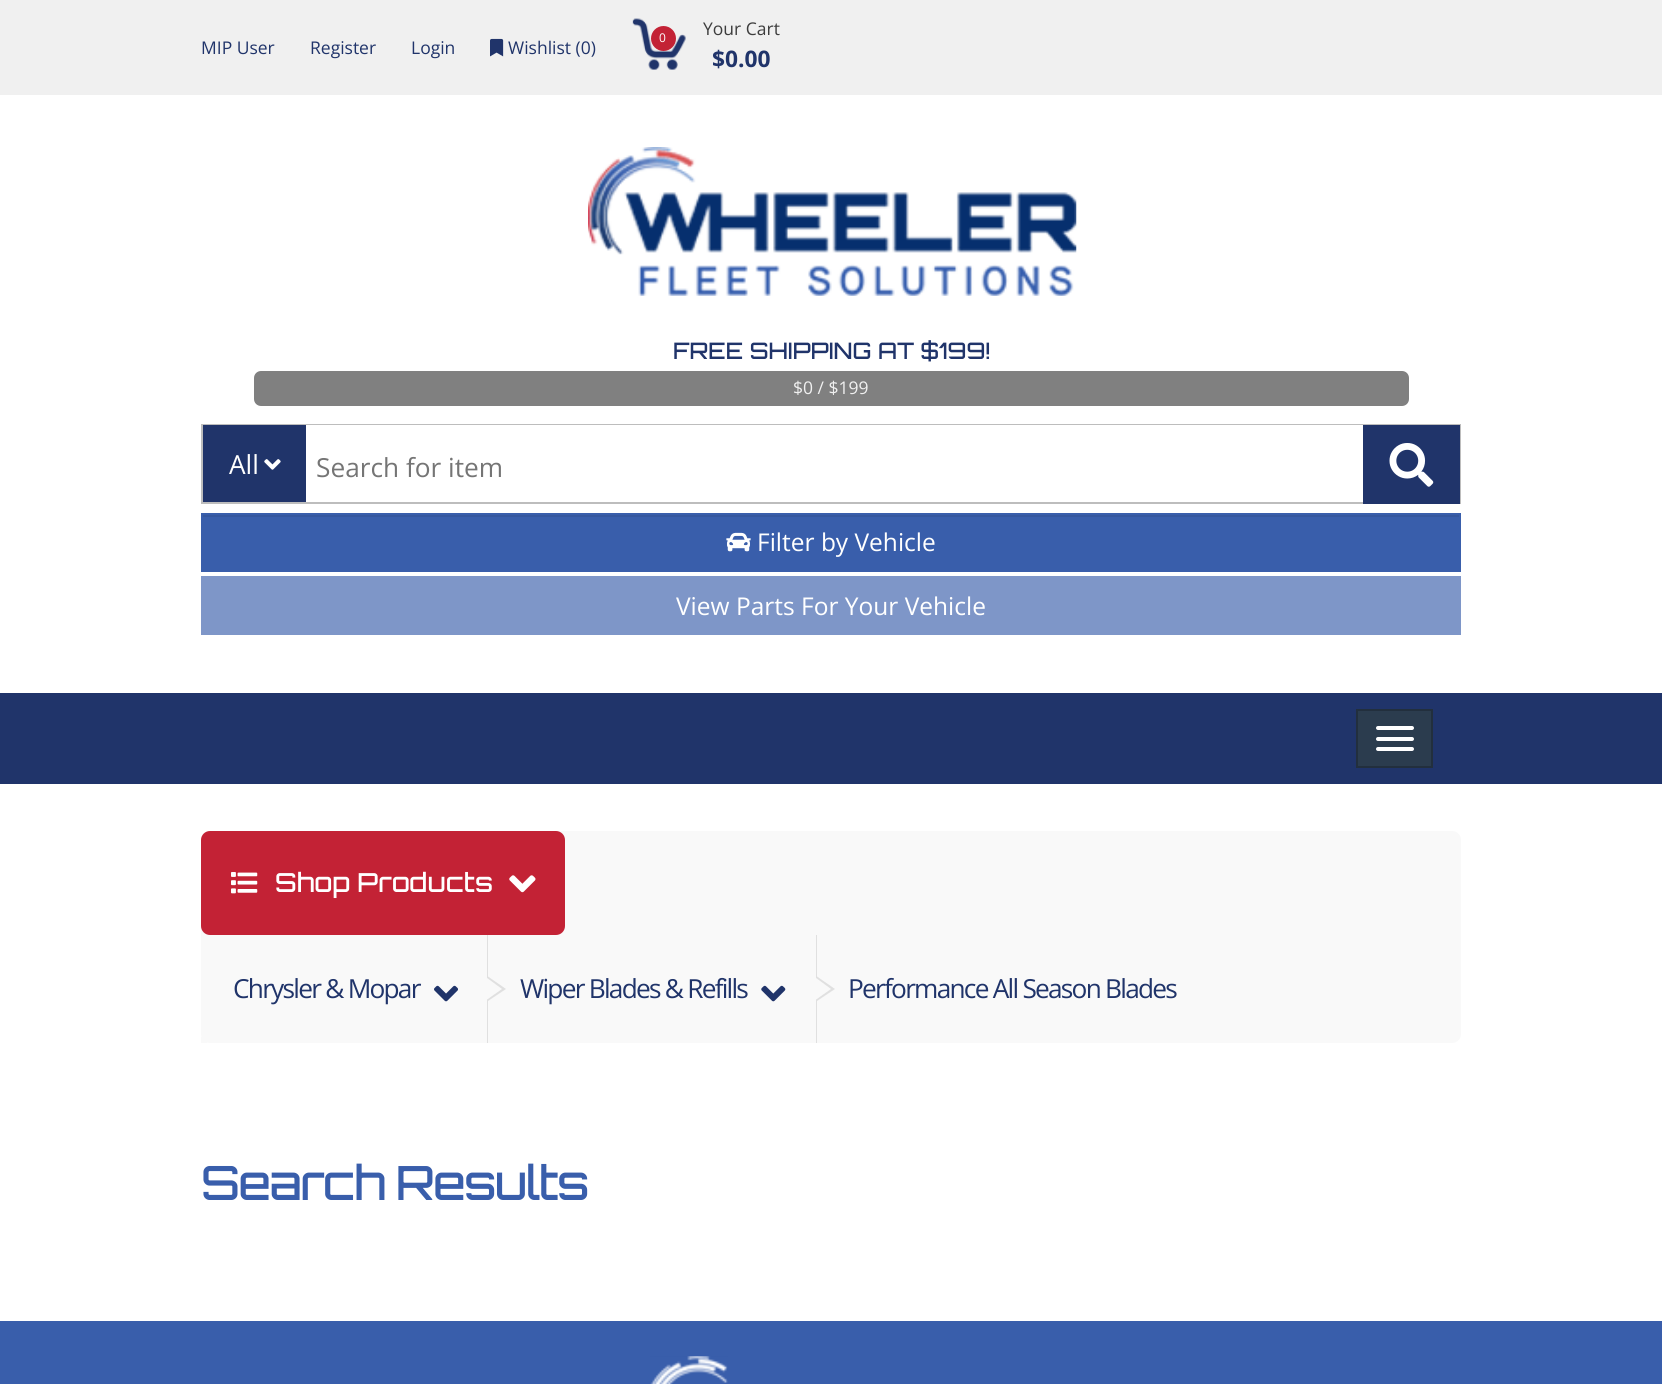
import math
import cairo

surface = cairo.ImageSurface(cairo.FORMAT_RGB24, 1662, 1384)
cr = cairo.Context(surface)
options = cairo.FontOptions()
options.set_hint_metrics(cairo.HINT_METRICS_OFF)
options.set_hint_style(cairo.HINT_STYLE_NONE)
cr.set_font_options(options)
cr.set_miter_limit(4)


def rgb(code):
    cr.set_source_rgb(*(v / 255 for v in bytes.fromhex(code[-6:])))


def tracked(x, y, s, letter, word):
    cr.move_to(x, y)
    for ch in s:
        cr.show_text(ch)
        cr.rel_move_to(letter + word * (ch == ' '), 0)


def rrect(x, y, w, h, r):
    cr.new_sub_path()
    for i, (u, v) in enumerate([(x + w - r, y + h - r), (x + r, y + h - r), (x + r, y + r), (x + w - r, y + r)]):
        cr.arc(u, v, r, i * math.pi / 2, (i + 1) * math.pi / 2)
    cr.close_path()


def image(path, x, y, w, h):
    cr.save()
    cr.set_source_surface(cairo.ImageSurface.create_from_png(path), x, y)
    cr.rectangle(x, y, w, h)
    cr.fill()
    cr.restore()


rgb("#ffffff")
cr.paint()
rgb("#f0f0f0")
cr.rectangle(0, 0, 1662, 95)
cr.fill()
image("img/1.png", 490, 38, 14, 19)
image("img/2.png", 632, 18, 54, 52)
rgb("#c32235")
cr.arc(663.5, 38.5, 12.5, 0, 2 * math.pi)
cr.fill()
image("img/3.png", 588, 147, 489, 149)
rgb("#808080")
rrect(254, 371, 1155, 35, 7)
cr.fill()
cr.rectangle(202, 425, 1258, 78)
rgb("#bdbdbd")
cr.stroke()
rgb("#20346a")
cr.rectangle(203, 425, 103, 77)
cr.fill()
image("img/4.png", 264, 459, 17, 11)
rgb("#ffffff")
cr.rectangle(306, 425, 1057, 1)
cr.fill()
rgb("#20346a")
cr.rectangle(1363, 425, 97, 79)
cr.fill()
image("img/5.png", 1389, 443, 45, 44)
rgb("#395eab")
cr.rectangle(203, 517, 1256, 53)
cr.fill()
rgb("#35579e")
cr.rectangle(203, 515, 1257, 2)
cr.fill()
cr.rectangle(202, 514, 1258, 57)
rgb("#395eab")
cr.stroke()
image("img/6.png", 726, 532, 25, 20)
rgb("#7e96c8")
cr.rectangle(201, 576, 1260, 59)
cr.fill()
rgb("#20346a")
cr.rectangle(0, 693, 1662, 91)
cr.fill()
rgb("#2b3c4e")
cr.rectangle(1357, 710, 75, 57)
cr.fill_preserve()
rgb("#222f3d")
cr.stroke()
rgb("#ffffff")
rrect(1376, 726, 38, 4, 2)
cr.fill()
rrect(1376, 737, 38, 4, 2)
cr.fill()
rrect(1376, 747, 38, 4, 2)
cr.fill()
rgb("#f9f9f9")
rrect(201, 831, 1260, 212, 9)
cr.fill()
rgb("#c32235")
rrect(201, 831, 364, 104, 9)
cr.fill()
image("img/7.png", 231, 872, 27, 22)
image("img/8.png", 509, 875, 27, 18)
rgb("#e0e0e0")
cr.rectangle(487, 935, 1, 108)
cr.fill()
cr.new_path()
cr.move_to(488, 1001)
cr.line_to(488, 976.5)
cr.line_to(506, 989)
cr.close_path()
cr.fill()
rgb("#f9f9f9")
cr.new_path()
cr.move_to(485, 1001)
cr.line_to(485, 976.5)
cr.line_to(502, 989)
cr.close_path()
cr.fill()
cr.rectangle(201, 1037, 6, 6)
cr.fill()
image("img/9.png", 434, 985, 24, 17)
rgb("#e0e0e0")
cr.rectangle(816, 935, 1, 108)
cr.fill()
cr.new_path()
cr.move_to(817, 1001)
cr.line_to(817, 976.5)
cr.line_to(835, 989)
cr.close_path()
cr.fill()
rgb("#f9f9f9")
cr.new_path()
cr.move_to(814, 1001)
cr.line_to(814, 976.5)
cr.line_to(831, 989)
cr.close_path()
cr.fill()
image("img/10.png", 761, 985, 25, 17)
rgb("#395eab")
cr.rectangle(0, 1321, 1662, 63)
cr.fill()
image("img/11.png", 650, 1356, 78, 28)
cr.select_font_face("Open Sans")
cr.set_font_size(17.5)
rgb("#20346a")
for x, y, s in [
    (201, 54, "MIP User"),
    (310, 54, "Register"),
    (411, 54, "Login"),
    (508, 54, "Wishlist (0)"),
]:
    cr.move_to(x, y)
    cr.show_text(s)
cr.set_font_size(12)
rgb("#ffffff")
cr.move_to(659, 42)
cr.show_text("0")
cr.set_font_size(17.5)
rgb("#3d3d3d")
cr.move_to(703, 35)
cr.show_text("Your Cart")
cr.select_font_face("Open Sans", cairo.FONT_SLANT_NORMAL, cairo.FONT_WEIGHT_BOLD)
cr.set_font_size(22.75)
rgb("#20346a")
cr.move_to(712, 67)
cr.show_text("$0.00")
cr.select_font_face("Orbitron Medium")
cr.move_to(673, 359)
cr.show_text("FREE SHIPPING AT $199!")
cr.select_font_face("Open Sans")
cr.set_font_size(17.5)
rgb("#f0f0f0")
cr.move_to(793, 394)
cr.show_text("$0 / $199")
cr.set_font_size(26.25)
rgb("#ffffff")
cr.move_to(229, 474)
cr.show_text("All")
rgb("#757575")
cr.move_to(316, 477)
cr.show_text("Search for item")
cr.set_font_size(24.5)
rgb("#ffffff")
cr.move_to(757, 551)
cr.show_text("Filter by Vehicle")
cr.move_to(676, 615)
cr.show_text("View Parts For Your Vehicle")
cr.select_font_face("Orbitron Medium")
cr.set_font_size(26.25)
cr.move_to(275, 892)
cr.show_text("Shop Products")
cr.select_font_face("Open Sans")
rgb("#20346a")
for x, y, s in [
    (233, 998, "Chrysler & Mopar"),
    (520, 998, "Wiper Blades & Refills"),
    (848, 998, "Performance All Season Blades"),
]:
    tracked(x, y, s, -1.75, 0)
cr.select_font_face("Orbitron Medium")
cr.set_font_size(47.25)
rgb("#395eab")
tracked(201, 1200, "Search Results", -1.75, 0)
surface.write_to_png("page.png")
